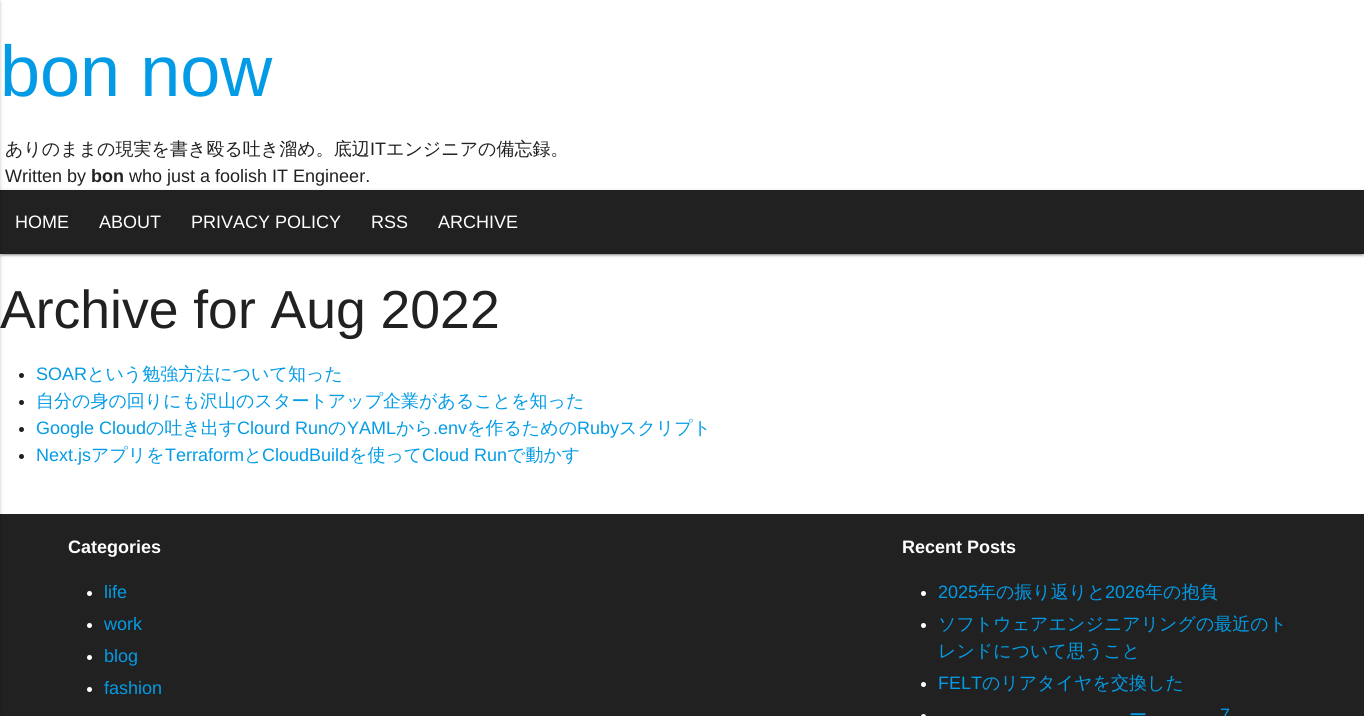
import math
import cairo

surface = cairo.ImageSurface(cairo.FORMAT_RGB24, 1364, 716)
cr = cairo.Context(surface)
options = cairo.FontOptions()
options.set_hint_metrics(cairo.HINT_METRICS_OFF)
options.set_hint_style(cairo.HINT_STYLE_NONE)
cr.set_font_options(options)
cr.set_miter_limit(4)


def rgb(code):
    cr.set_source_rgb(*(v / 255 for v in bytes.fromhex(code[-6:])))


def rrect(x, y, w, h, r):
    cr.new_sub_path()
    for i, (u, v) in enumerate([(x + w - r, y + h - r), (x + r, y + h - r), (x + r, y + r), (x + w - r, y + r)]):
        cr.arc(u, v, r, i * math.pi / 2, (i + 1) * math.pi / 2)
    cr.close_path()


def soft_shadow(x, y, w, h, r, blur, alpha):
    cr.push_group_with_content(cairo.CONTENT_ALPHA)
    cr.set_operator(cairo.OPERATOR_SOURCE)
    for i in range(15, -16, -2):
        e = blur * i / 6
        if min(w, h) + 2 * e > 0:
            cr.set_source_rgba(0, 0, 0, alpha * math.erfc((i - 1) / 8.5) / 2)
            rrect(x - e, y - e, w + 2 * e, h + 2 * e, max(0, min(r + e + blur * .6, min(w, h) / 2 + e)))
            cr.fill()
    cr.mask(cr.pop_group())


rgb("#ffffff")
cr.paint()
rgb("#000000")
soft_shadow(2, 195, 1360, 60, 0, 0.5, 0.2)
soft_shadow(0, 191, 1364, 64, 0, 2.5, 0.12)
soft_shadow(0, 192, 1364, 64, 0, 1, 0.14)
rgb("#212121")
cr.rectangle(0, 190, 1364, 64)
cr.fill()
cr.rectangle(0, 514, 1364, 202)
cr.fill()
rgb("#000000")
soft_shadow(-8, 1, 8, 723, 0, 2.5, 0.12)
soft_shadow(-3, 2, 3, 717, 0, 1, 0.14)
rgb("#212121")
cr.arc(21.5, 375.5, 2.5, 0, 2 * math.pi)
cr.fill()
cr.arc(21.5, 402.5, 2.5, 0, 2 * math.pi)
cr.fill()
cr.arc(21.5, 429.5, 2.5, 0, 2 * math.pi)
cr.fill()
cr.arc(21.5, 456.5, 2.5, 0, 2 * math.pi)
cr.fill()
rgb("#ffffff")
cr.arc(89.5, 593.5, 2.5, 0, 2 * math.pi)
cr.fill()
cr.arc(89.5, 625.5, 2.5, 0, 2 * math.pi)
cr.fill()
cr.arc(89.5, 657.5, 2.5, 0, 2 * math.pi)
cr.fill()
cr.arc(89.5, 689.5, 2.5, 0, 2 * math.pi)
cr.fill()
cr.arc(923.5, 593.5, 2.5, 0, 2 * math.pi)
cr.fill()
cr.arc(923.5, 625.5, 2.5, 0, 2 * math.pi)
cr.fill()
cr.arc(923.5, 684.5, 2.5, 0, 2 * math.pi)
cr.fill()
cr.arc(923.5, 716.5, 2.5, 0, 2 * math.pi)
cr.fill()
cr.select_font_face("Liberation Sans")
cr.set_font_size(72)
rgb("#039be5")
cr.move_to(0, 96)
cr.show_text("bon now")
cr.select_font_face("WenQuanYi Zen Hei Medium")
cr.set_font_size(18)
rgb("#212121")
cr.move_to(5, 155)
cr.show_text("ありのままの現実を書き殴る吐き溜め。底辺")
cr.select_font_face("Liberation Sans")
cr.move_to(370, 155)
cr.show_text("IT")
cr.select_font_face("WenQuanYi Zen Hei Medium")
cr.move_to(386, 155)
cr.show_text("エンジニアの備忘録。")
cr.select_font_face("Liberation Sans")
cr.move_to(5, 182)
cr.show_text("Written by")
cr.select_font_face("Liberation Sans", cairo.FONT_SLANT_NORMAL, cairo.FONT_WEIGHT_BOLD)
cr.move_to(91, 182)
cr.show_text("bon")
cr.select_font_face("Liberation Sans")
cr.move_to(129, 182)
cr.show_text("who just a foolish IT Engineer.")
rgb("#ffffff")
for x, y, s in [
    (15, 228, "HOME"),
    (99, 228, "ABOUT"),
    (191, 228, "PRIVACY POLICY"),
    (371, 228, "RSS"),
    (438, 228, "ARCHIVE"),
]:
    cr.move_to(x, y)
    cr.show_text(s)
cr.set_font_size(53.5)
rgb("#212121")
cr.move_to(0, 328)
cr.show_text("Archive for Aug 2022")
cr.set_font_size(18)
rgb("#039be5")
cr.move_to(36, 380)
cr.show_text("SOAR")
cr.select_font_face("WenQuanYi Zen Hei Medium")
cr.move_to(87, 380)
cr.show_text("という勉強方法について知った")
cr.move_to(36, 407)
cr.show_text("自分の身の回りにも沢山のスタートアップ企業があることを知った")
cr.select_font_face("Liberation Sans")
cr.move_to(36, 434)
cr.show_text("Google Cloud")
cr.select_font_face("WenQuanYi Zen Hei Medium")
cr.move_to(146, 434)
cr.show_text("の吐き出す")
cr.select_font_face("Liberation Sans")
cr.move_to(237, 434)
cr.show_text("Clourd Run")
cr.select_font_face("WenQuanYi Zen Hei Medium")
cr.move_to(328, 434)
cr.show_text("の")
cr.select_font_face("Liberation Sans")
cr.move_to(347, 434)
cr.show_text("YAML")
cr.select_font_face("WenQuanYi Zen Hei Medium")
cr.move_to(396, 434)
cr.show_text("から")
cr.select_font_face("Liberation Sans")
cr.move_to(433, 434)
cr.show_text(".env")
cr.select_font_face("WenQuanYi Zen Hei Medium")
cr.move_to(467, 434)
cr.show_text("を作るための")
cr.select_font_face("Liberation Sans")
cr.move_to(577, 434)
cr.show_text("Ruby")
cr.select_font_face("WenQuanYi Zen Hei Medium")
cr.move_to(619, 434)
cr.show_text("スクリプト")
cr.select_font_face("Liberation Sans")
cr.move_to(36, 461)
cr.show_text("Next.js")
cr.select_font_face("WenQuanYi Zen Hei Medium")
cr.move_to(91, 461)
cr.show_text("アプリを")
cr.select_font_face("Liberation Sans")
cr.move_to(165, 461)
cr.show_text("Terraform")
cr.select_font_face("WenQuanYi Zen Hei Medium")
cr.move_to(244, 461)
cr.show_text("と")
cr.select_font_face("Liberation Sans")
cr.move_to(262, 461)
cr.show_text("CloudBuild")
cr.select_font_face("WenQuanYi Zen Hei Medium")
cr.move_to(349, 461)
cr.show_text("を使って")
cr.select_font_face("Liberation Sans")
cr.move_to(422, 461)
cr.show_text("Cloud Run")
cr.select_font_face("WenQuanYi Zen Hei Medium")
cr.move_to(507, 461)
cr.show_text("で動かす")
cr.select_font_face("Liberation Sans", cairo.FONT_SLANT_NORMAL, cairo.FONT_WEIGHT_BOLD)
rgb("#ffffff")
cr.move_to(68, 553)
cr.show_text("Categories")
cr.select_font_face("Liberation Sans")
rgb("#039be5")
for x, y, s in [
    (104, 598, "life"),
    (104, 630, "work"),
    (104, 662, "blog"),
    (104, 694, "fashion"),
]:
    cr.move_to(x, y)
    cr.show_text(s)
cr.select_font_face("Liberation Sans", cairo.FONT_SLANT_NORMAL, cairo.FONT_WEIGHT_BOLD)
rgb("#ffffff")
cr.move_to(902, 553)
cr.show_text("Recent Posts")
cr.select_font_face("Liberation Sans")
rgb("#039be5")
cr.move_to(938, 598)
cr.show_text("2025")
cr.select_font_face("WenQuanYi Zen Hei Medium")
cr.move_to(978, 598)
cr.show_text("年の振り返りと")
cr.select_font_face("Liberation Sans")
cr.move_to(1105, 598)
cr.show_text("2026")
cr.select_font_face("WenQuanYi Zen Hei Medium")
for x, y, s in [
    (1145, 598, "年の抱負"),
    (938, 630, "ソフトウェアエンジニアリングの最近のト"),
    (938, 657, "レンドについて思うこと"),
]:
    cr.move_to(x, y)
    cr.show_text(s)
cr.select_font_face("Liberation Sans")
cr.move_to(938, 689)
cr.show_text("FELT")
cr.select_font_face("WenQuanYi Zen Hei Medium")
cr.move_to(982, 689)
cr.show_text("のリアタイヤを交換した")
cr.move_to(1129, 721)
cr.show_text("ー")
cr.select_font_face("Liberation Sans")
cr.move_to(1220, 721)
cr.show_text("7")
surface.write_to_png("page.png")
